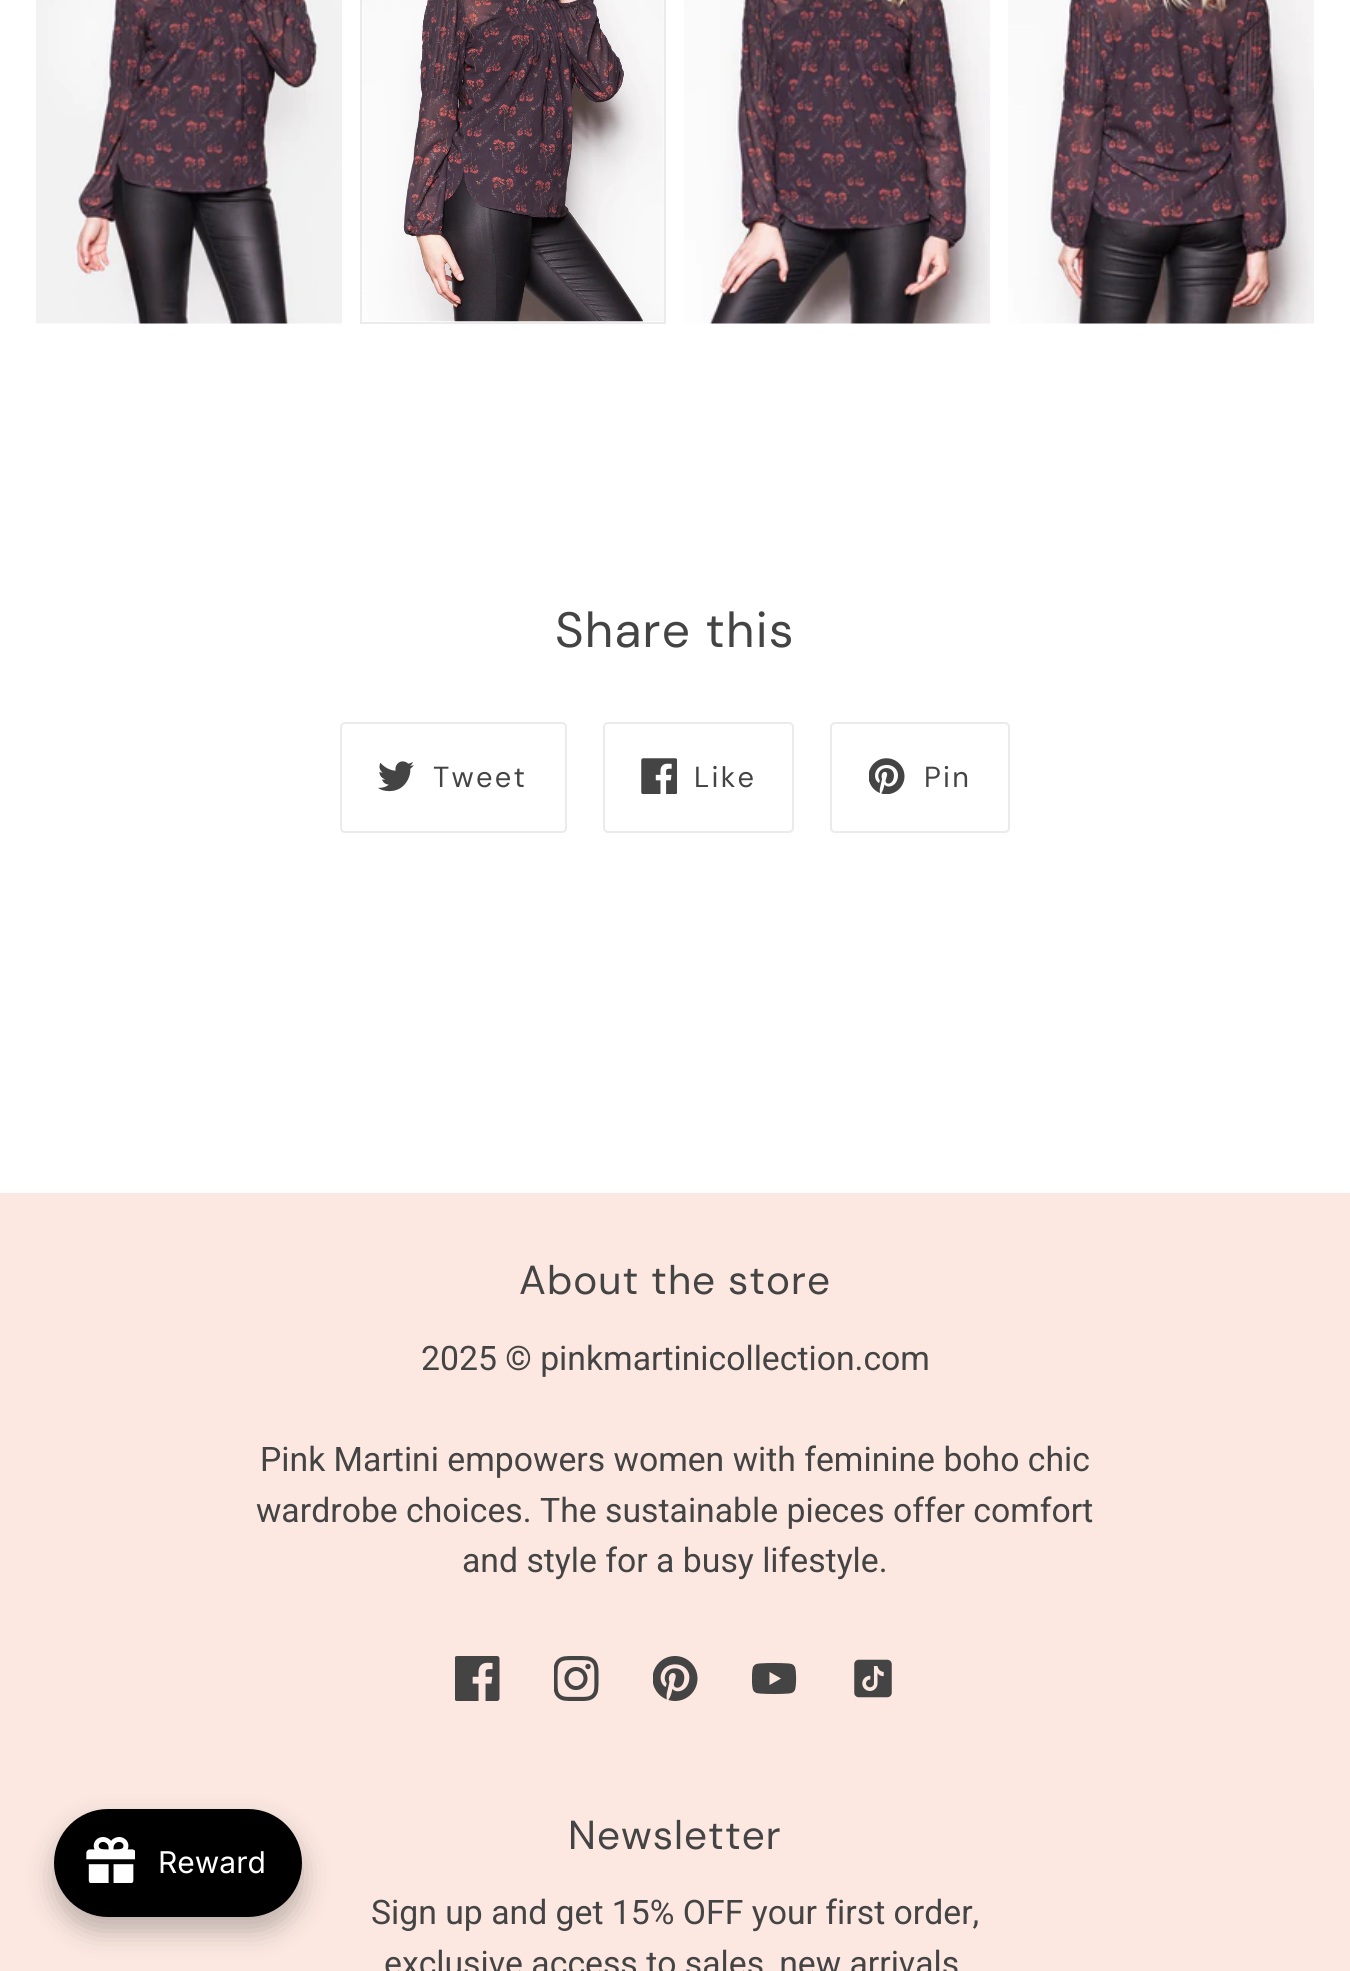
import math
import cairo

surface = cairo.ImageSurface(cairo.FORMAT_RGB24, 1350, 1971)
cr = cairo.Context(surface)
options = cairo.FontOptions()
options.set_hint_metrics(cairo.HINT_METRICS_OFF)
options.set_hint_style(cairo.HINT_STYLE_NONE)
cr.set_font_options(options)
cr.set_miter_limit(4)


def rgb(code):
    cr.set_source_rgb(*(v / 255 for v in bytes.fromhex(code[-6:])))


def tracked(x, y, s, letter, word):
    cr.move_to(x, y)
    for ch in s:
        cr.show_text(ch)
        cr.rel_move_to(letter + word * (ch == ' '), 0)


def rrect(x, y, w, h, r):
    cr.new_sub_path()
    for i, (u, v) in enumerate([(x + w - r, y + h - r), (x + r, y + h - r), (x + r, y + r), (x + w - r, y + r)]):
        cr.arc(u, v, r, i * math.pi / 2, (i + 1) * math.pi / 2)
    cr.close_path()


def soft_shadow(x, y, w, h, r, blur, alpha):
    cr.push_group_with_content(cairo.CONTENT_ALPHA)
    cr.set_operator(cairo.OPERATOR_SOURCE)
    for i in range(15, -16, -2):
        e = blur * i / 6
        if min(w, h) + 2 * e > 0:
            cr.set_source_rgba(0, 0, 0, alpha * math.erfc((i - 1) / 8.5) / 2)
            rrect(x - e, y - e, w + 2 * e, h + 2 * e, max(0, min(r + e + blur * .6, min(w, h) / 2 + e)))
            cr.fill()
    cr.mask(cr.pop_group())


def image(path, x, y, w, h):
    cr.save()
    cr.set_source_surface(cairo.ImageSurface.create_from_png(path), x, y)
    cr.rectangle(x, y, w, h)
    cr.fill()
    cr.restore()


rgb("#ffffff")
cr.paint()
rgb("#fce8e1")
cr.rectangle(0, 1193, 1350, 778)
cr.fill()
rgb("#000000")
soft_shadow(54, 1823, 248, 108, 54, 13.5, 0.25)
rgb("#000000")
rrect(54, 1809, 248, 108, 54)
cr.fill()
image("img/1.png", 86, 1837, 49, 46)
image("img/2.png", 36, 0, 306, 324)
cr.rectangle(361, -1, 304, 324)
rgb("#ebebeb")
cr.stroke()
image("img/3.png", 362, 0, 302, 322)
image("img/4.png", 684, 0, 306, 324)
image("img/5.png", 1008, 0, 306, 324)
rrect(341, 723, 225, 109, 4)
cr.stroke()
image("img/6.png", 378, 761, 36, 31)
rrect(604, 723, 189, 109, 4)
cr.stroke()
image("img/7.png", 641, 758, 36, 36)
rrect(831, 723, 178, 109, 4)
cr.stroke()
image("img/8.png", 869, 758, 36, 36)
image("img/9.png", 455, 1656, 45, 45)
image("img/10.png", 554, 1656, 45, 45)
image("img/11.png", 653, 1656, 45, 45)
image("img/12.png", 752, 1663, 45, 31)
image("img/13.png", 854, 1659, 38, 39)
cr.select_font_face("Inter")
cr.set_font_size(30)
rgb("#ffffff")
cr.move_to(158, 1873)
cr.show_text("Reward")
cr.select_font_face("DM Sans")
cr.set_font_size(49.5)
rgb("#444444")
tracked(555, 647, "Share this", 1.25, 0)
cr.select_font_face("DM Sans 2")
cr.set_font_size(29)
for x, y, s in [
    (433, 787, "Tweet"),
    (694, 787, "Like"),
    (924, 787, "Pin"),
]:
    tracked(x, y, s, 2.25, 0)
cr.select_font_face("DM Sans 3")
cr.set_font_size(40.5)
tracked(519, 1294, "About the store", 1, 0)
cr.select_font_face("Roboto")
cr.set_font_size(33.75)
for x, y, s in [
    (421, 1370, "2025 © pinkmartinicollection.com"),
    (260, 1471, "Pink Martini empowers women with feminine boho chic"),
    (256, 1522, "wardrobe choices. The sustainable pieces offer comfort"),
    (462, 1572, "and style for a busy lifestyle."),
]:
    cr.move_to(x, y)
    cr.show_text(s)
cr.select_font_face("DM Sans 3")
cr.set_font_size(40.5)
tracked(568, 1849, "Newsletter", 1, 0)
cr.select_font_face("Roboto")
cr.set_font_size(33.75)
cr.move_to(371, 1924)
cr.show_text("Sign up and get 15% OFF your first order,")
cr.move_to(384, 1975)
cr.show_text("exclusive access to sales, new arrivals")
surface.write_to_png("page.png")
